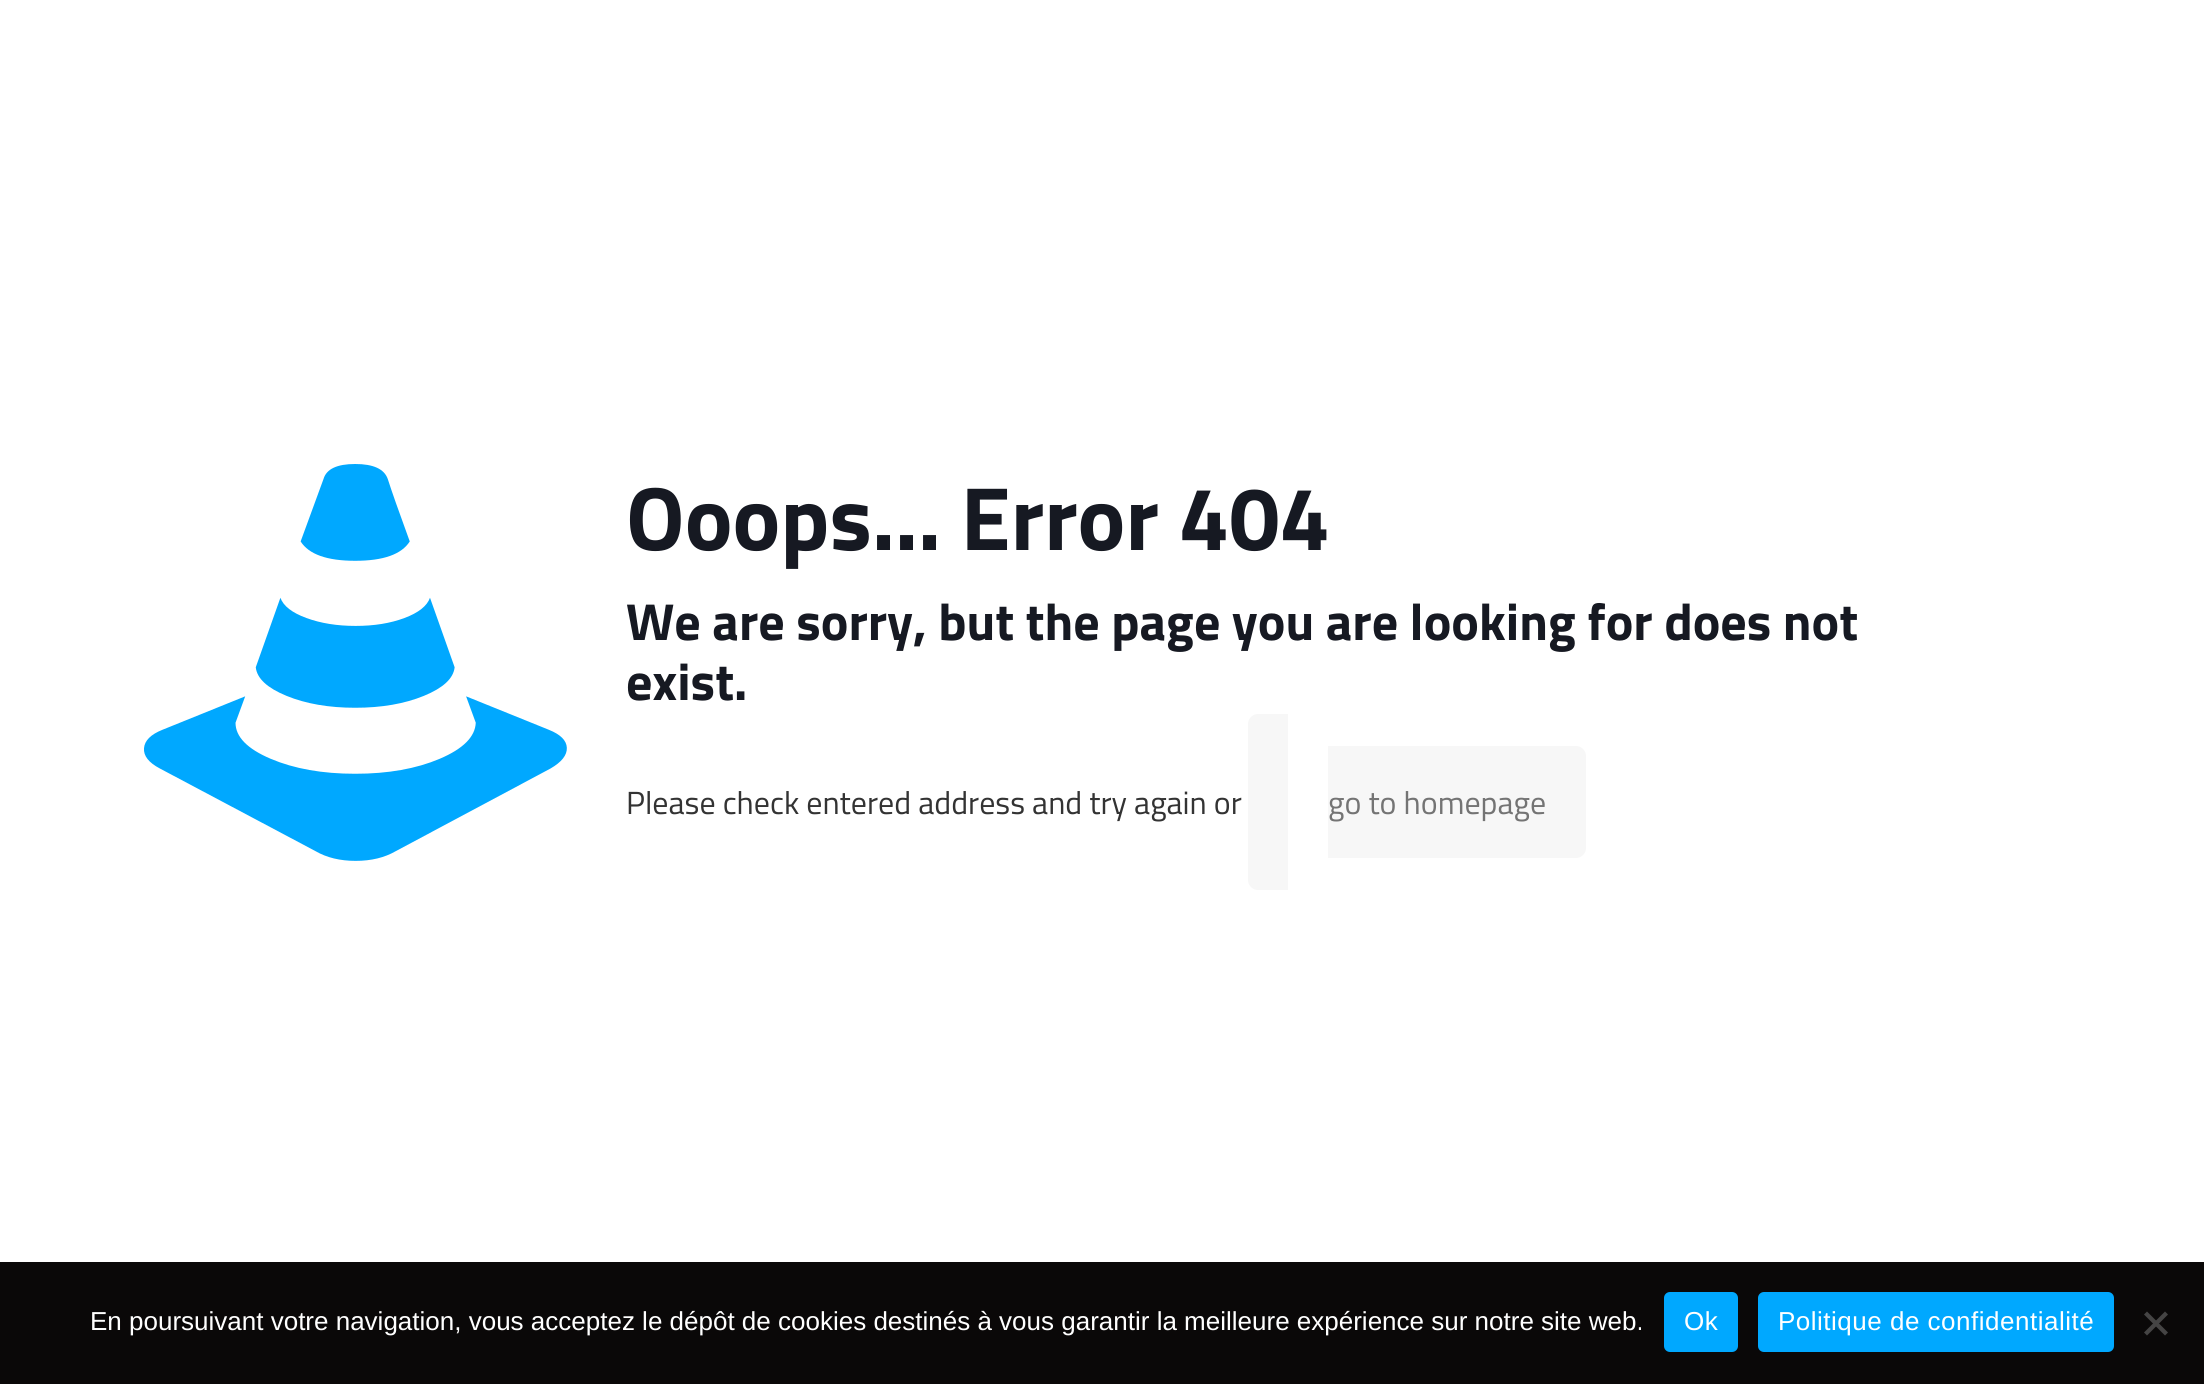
import math
import cairo

surface = cairo.ImageSurface(cairo.FORMAT_RGB24, 2204, 1384)
cr = cairo.Context(surface)
options = cairo.FontOptions()
options.set_hint_metrics(cairo.HINT_METRICS_OFF)
options.set_hint_style(cairo.HINT_STYLE_NONE)
cr.set_font_options(options)
cr.set_miter_limit(4)


def rgb(code):
    cr.set_source_rgb(*(v / 255 for v in bytes.fromhex(code[-6:])))


def tracked(x, y, s, letter, word):
    cr.move_to(x, y)
    for ch in s:
        cr.show_text(ch)
        cr.rel_move_to(letter + word * (ch == ' '), 0)


def rrect(x, y, w, h, r):
    cr.new_sub_path()
    for i, (u, v) in enumerate([(x + w - r, y + h - r), (x + r, y + h - r), (x + r, y + r), (x + w - r, y + r)]):
        cr.arc(u, v, r, i * math.pi / 2, (i + 1) * math.pi / 2)
    cr.close_path()


def image(path, x, y, w, h):
    cr.save()
    cr.set_source_surface(cairo.ImageSurface.create_from_png(path), x, y)
    cr.rectangle(x, y, w, h)
    cr.fill()
    cr.restore()


rgb("#ffffff")
cr.paint()
image("img/1.png", 144, 464, 423, 397)
rgb("#f7f7f7")
cr.new_path()
cr.move_to(1258, 714)
cr.line_to(1288, 714)
cr.line_to(1288, 890)
cr.line_to(1258, 890)
cr.curve_to(1252.5, 890, 1248, 885.5, 1248, 880)
cr.line_to(1248, 724)
cr.curve_to(1248, 718.5, 1252.5, 714, 1258, 714)
cr.close_path()
cr.fill()
cr.new_path()
cr.move_to(1328, 746)
cr.line_to(1576, 746)
cr.curve_to(1581.5, 746, 1586, 750.5, 1586, 756)
cr.line_to(1586, 848)
cr.curve_to(1586, 853.5, 1581.5, 858, 1576, 858)
cr.line_to(1328, 858)
cr.close_path()
cr.fill()
rgb("#0a0808")
cr.rectangle(0, 1262, 2204, 122)
cr.fill()
rgb("#00a8ff")
rrect(1664, 1292, 74, 60, 6)
cr.fill()
rrect(1758, 1292, 356, 60, 6)
cr.fill()
rgb("#454444")
cr.new_path()
cr.move_to(2165, 1311.5)
cr.line_to(2168, 1314.5)
cr.line_to(2147, 1335.5)
cr.line_to(2144, 1332.5)
cr.close_path()
cr.fill()
cr.new_path()
cr.move_to(2144, 1314.5)
cr.line_to(2147, 1311.5)
cr.line_to(2168, 1332.5)
cr.line_to(2165, 1335.5)
cr.close_path()
cr.fill()
cr.select_font_face("Titillium Web", cairo.FONT_SLANT_NORMAL, cairo.FONT_WEIGHT_BOLD)
cr.set_font_size(90)
rgb("#161922")
cr.move_to(626, 550)
cr.show_text("Ooops... Error 404")
cr.set_font_size(52)
cr.move_to(626, 640)
cr.show_text("We are sorry, but the page you are looking for does not")
cr.move_to(626, 700)
cr.show_text("exist.")
cr.select_font_face("Titillium Web")
cr.set_font_size(32)
rgb("#333333")
cr.move_to(626, 814)
cr.show_text("Please check entered address and try again or")
rgb("#747474")
cr.move_to(1328, 814)
cr.show_text("go to homepage")
cr.select_font_face("Liberation Sans")
cr.set_font_size(26)
rgb("#ffffff")
cr.move_to(90, 1330)
cr.show_text("En poursuivant votre navigation, vous acceptez le dépôt de cookies destinés à vous garantir la meilleure expérience sur notre site web.")
tracked(1684, 1330, "Ok", 0.5, 0)
tracked(1778, 1330, "Politique de confidentialité", 0.5, 0)
surface.write_to_png("page.png")
